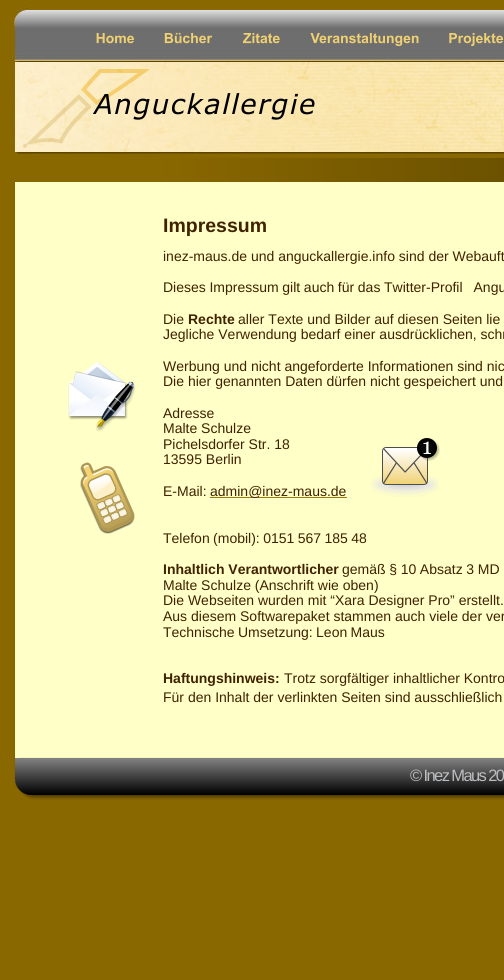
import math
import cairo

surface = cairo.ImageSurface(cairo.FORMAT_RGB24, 504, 980)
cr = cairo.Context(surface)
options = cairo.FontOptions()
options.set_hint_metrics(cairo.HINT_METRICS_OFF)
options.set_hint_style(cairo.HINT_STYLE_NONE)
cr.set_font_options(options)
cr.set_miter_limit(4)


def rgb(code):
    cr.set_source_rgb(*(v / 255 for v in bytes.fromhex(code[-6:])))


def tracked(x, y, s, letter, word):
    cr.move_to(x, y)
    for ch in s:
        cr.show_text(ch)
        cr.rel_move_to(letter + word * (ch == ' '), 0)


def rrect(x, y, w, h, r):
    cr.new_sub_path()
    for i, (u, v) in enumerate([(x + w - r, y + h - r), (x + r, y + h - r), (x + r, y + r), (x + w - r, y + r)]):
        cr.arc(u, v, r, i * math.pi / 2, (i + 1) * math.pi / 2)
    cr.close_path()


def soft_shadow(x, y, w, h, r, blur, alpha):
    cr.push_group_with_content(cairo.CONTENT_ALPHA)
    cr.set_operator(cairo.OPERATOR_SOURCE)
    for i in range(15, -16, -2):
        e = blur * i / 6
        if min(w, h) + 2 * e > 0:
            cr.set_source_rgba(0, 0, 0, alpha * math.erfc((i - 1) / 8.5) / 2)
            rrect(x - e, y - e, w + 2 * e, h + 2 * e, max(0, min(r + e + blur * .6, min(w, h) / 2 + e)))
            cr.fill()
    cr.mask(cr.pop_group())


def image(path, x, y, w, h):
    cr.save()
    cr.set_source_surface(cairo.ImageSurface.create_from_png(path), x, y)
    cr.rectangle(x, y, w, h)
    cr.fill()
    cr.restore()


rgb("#8a6800")
cr.paint()
image("img/6.png", 12, 6, 492, 152)
image("img/1.png", 96, 33, 38, 11)
image("img/2.png", 164, 32, 49, 12)
image("img/3.png", 243, 33, 37, 11)
image("img/4.png", 310, 33, 109, 13)
image("img/5.png", 449, 33, 54, 13)
image("img/8.png", 23, 94, 69, 54)
image("img/7.png", 81, 69, 69, 36)
rgb("#000000")
soft_shadow(19, 184, 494, 600, 0, 3, 0.51)
gradient = cairo.LinearGradient(14, 170, 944, 170)
gradient.add_color_stop_rgba(0.15, 0.541, 0.408, 0, 1)
gradient.add_color_stop_rgba(0.93, 0.298, 0.224, 0, 1)
cr.set_source(gradient)
cr.rectangle(16, 158, 488, 24)
cr.fill()
rgb("#ffffc8")
cr.rectangle(15, 182, 489, 599)
cr.fill()
image("img/9.png", 68, 362, 60, 58)
image("img/10.png", 96, 381, 40, 51)
rgb("#9d7a0d")
cr.rectangle(210, 497, 137, 1)
cr.fill()
image("img/15.png", 371, 475, 68, 22)
cr.save()
rrect(382, 447, 46, 38, 4)
cr.clip()
gradient = cairo.LinearGradient(405, 448, 405, 485)
gradient.add_color_stop_rgba(0.02, 1, 1, 1, 1)
gradient.add_color_stop_rgba(1, 0.941, 0.82, 0.447, 1)
cr.set_source(gradient)
cr.rectangle(382, 448, 46, 36)
cr.fill()
cr.restore()
rrect(382.5, 447.5, 45, 37, 3.5)
rgb("#4d4d4c")
cr.set_line_width(1)
cr.stroke()
image("img/12.png", 383, 448, 38, 25)
image("img/11.png", 417, 438, 23, 23)
image("img/13.png", 383, 462, 14, 22)
image("img/14.png", 413, 462, 14, 22)
image("img/16.png", 388, 485, 36, 5)
image("img/17.png", 80, 462, 55, 72)
image("img/18.png", 15, 757, 489, 43)
cr.select_font_face("Verdana", cairo.FONT_SLANT_ITALIC)
cr.set_font_size(27.5)
rgb("#000000")
tracked(94, 114, "Anguckallergie", 1.5, 0)
cr.select_font_face("Liberation Sans", cairo.FONT_SLANT_NORMAL, cairo.FONT_WEIGHT_BOLD)
cr.set_font_size(19.5)
rgb("#402100")
cr.move_to(163, 232)
cr.show_text("Impressum")
cr.select_font_face("Liberation Sans")
cr.set_font_size(14)
cr.move_to(163, 261)
cr.show_text("inez-maus.de und anguckallergie.info sind der Webauft")
tracked(163, 292, "Dieses Impressum gilt auch für das Twitter-Profil   Angu", 0, -0.25)
cr.move_to(163, 324)
cr.show_text("Die")
cr.select_font_face("Liberation Sans", cairo.FONT_SLANT_NORMAL, cairo.FONT_WEIGHT_BOLD)
cr.move_to(188, 324)
cr.show_text("Rechte")
cr.select_font_face("Liberation Sans")
for x, y, s in [
    (238, 324, "aller Texte und Bilder auf diesen Seiten lie"),
    (163, 339, "Jegliche Verwendung bedarf einer ausdrücklichen, schr"),
    (163, 371, "Werbung und nicht angeforderte Informationen sind nic"),
    (163, 386, "Die hier genannten Daten dürfen nicht gespeichert und"),
    (163, 418, "Adresse"),
    (163, 433, "Malte Schulze"),
    (163, 449, "Pichelsdorfer Str. 18"),
    (163, 464, "13595 Berlin"),
    (163, 496, "E-Mail:"),
    (210, 496, "admin@inez-maus.de"),
]:
    cr.move_to(x, y)
    cr.show_text(s)
tracked(163, 543, "Telefon (mobil): 0151 567 185 48", 0, -0.5)
cr.select_font_face("Liberation Sans", cairo.FONT_SLANT_NORMAL, cairo.FONT_WEIGHT_BOLD)
cr.move_to(163, 574)
cr.show_text("Inhaltlich Verantwortlicher")
cr.select_font_face("Liberation Sans")
tracked(342, 574, "gemäß § 10 Absatz 3 MD", 0, -0.25)
for x, y, s in [
    (163, 590, "Malte Schulze (Anschrift wie oben)"),
    (163, 605, "Die Webseiten wurden mit “Xara Designer Pro” erstellt."),
    (163, 621, "Aus diesem Softwarepaket stammen auch viele der ver"),
]:
    cr.move_to(x, y)
    cr.show_text(s)
tracked(163, 637, "Technische Umsetzung: Leon Maus", 0, -0.5)
cr.select_font_face("Liberation Sans", cairo.FONT_SLANT_NORMAL, cairo.FONT_WEIGHT_BOLD)
cr.move_to(163, 683)
cr.show_text("Haftungshinweis:")
cr.select_font_face("Liberation Sans")
cr.move_to(284, 683)
cr.show_text("Trotz sorgfältiger inhaltlicher Kontro")
cr.move_to(163, 702)
cr.show_text("Für den Inhalt der verlinkten Seiten sind ausschließlich")
cr.select_font_face("Georgia")
cr.set_font_size(23)
rgb("#ffffff")
cr.move_to(422, 454)
cr.show_text("1")
cr.select_font_face("Liberation Sans")
cr.set_font_size(16.5)
rgb("#bcbdc0")
tracked(410, 781, "© Inez Maus 20", -1.6, 0)
surface.write_to_png("page.png")
